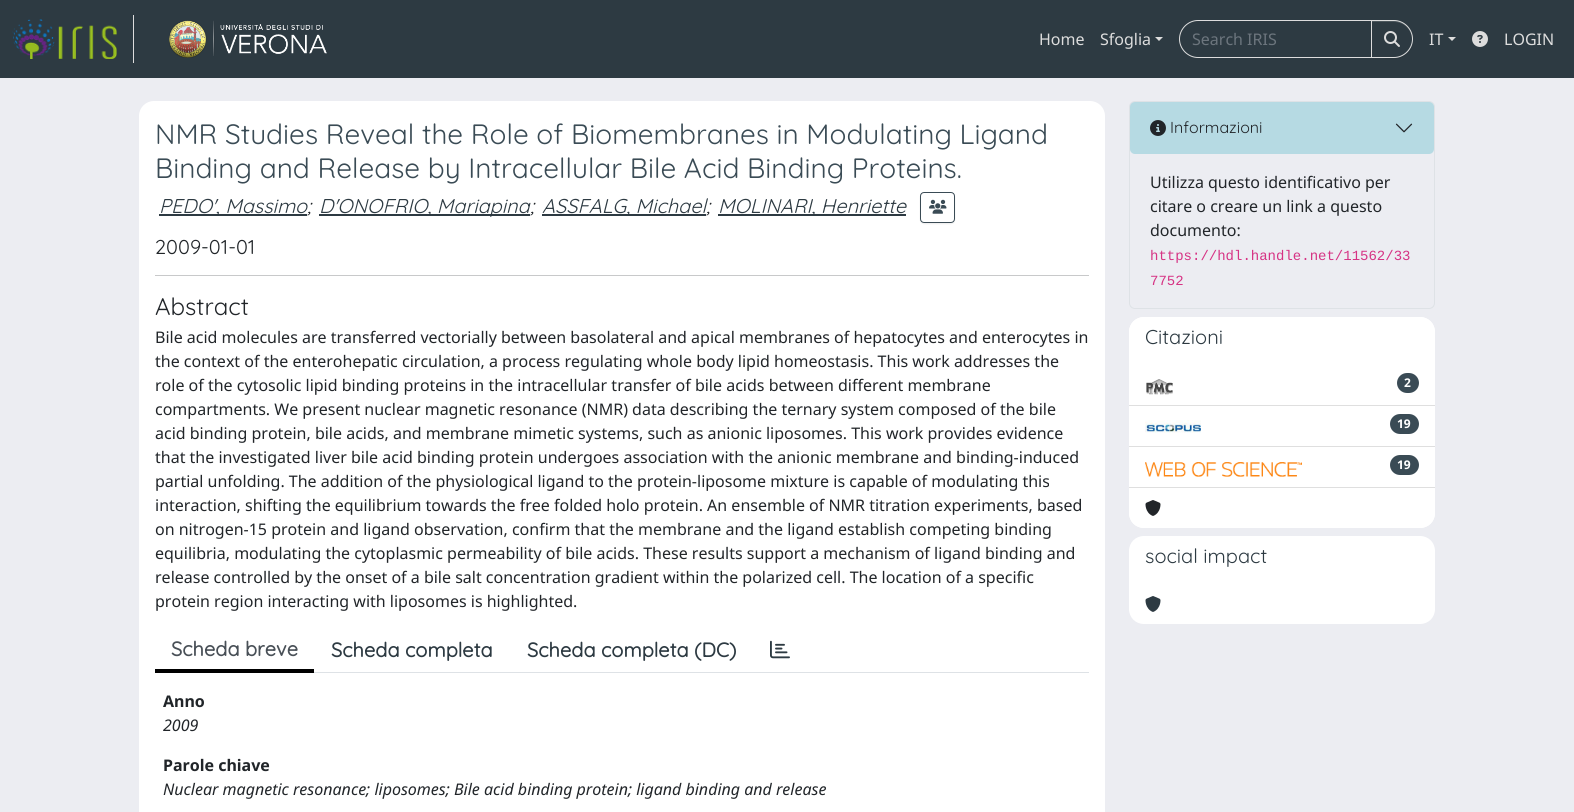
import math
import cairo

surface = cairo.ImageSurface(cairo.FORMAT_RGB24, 1574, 812)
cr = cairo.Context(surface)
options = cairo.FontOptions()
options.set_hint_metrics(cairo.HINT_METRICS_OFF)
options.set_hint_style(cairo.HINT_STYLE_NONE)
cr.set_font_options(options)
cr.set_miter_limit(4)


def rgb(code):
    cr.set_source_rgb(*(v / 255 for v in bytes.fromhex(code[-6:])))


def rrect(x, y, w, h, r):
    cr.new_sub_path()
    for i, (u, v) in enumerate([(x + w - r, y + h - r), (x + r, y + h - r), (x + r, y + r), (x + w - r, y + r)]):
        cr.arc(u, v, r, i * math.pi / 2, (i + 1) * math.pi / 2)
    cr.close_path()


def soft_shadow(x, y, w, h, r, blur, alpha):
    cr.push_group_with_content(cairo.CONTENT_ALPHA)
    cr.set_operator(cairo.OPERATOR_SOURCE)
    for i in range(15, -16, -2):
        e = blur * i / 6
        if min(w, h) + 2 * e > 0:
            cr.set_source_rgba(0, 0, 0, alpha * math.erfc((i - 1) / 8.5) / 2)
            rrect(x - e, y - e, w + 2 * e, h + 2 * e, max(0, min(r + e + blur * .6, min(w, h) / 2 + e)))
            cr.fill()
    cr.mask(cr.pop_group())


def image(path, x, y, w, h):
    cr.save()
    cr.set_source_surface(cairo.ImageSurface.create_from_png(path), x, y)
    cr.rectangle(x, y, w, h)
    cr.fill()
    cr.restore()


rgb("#ecedf2")
cr.paint()
rgb("#2d3a42")
cr.rectangle(0, 0, 1574, 78)
cr.fill()
rgb("#dddddd")
cr.rectangle(133, 15, 1, 48)
cr.fill()
image("img/1.png", 12, 19, 105, 40)
image("img/2.png", 169, 20, 158, 38)
cr.new_path()
cr.move_to(1155, 37)
cr.line_to(1163, 37)
cr.line_to(1159, 41)
cr.close_path()
cr.fill()
cr.new_path()
cr.move_to(1198, 20.5)
cr.line_to(1371.5, 20.5)
cr.line_to(1371.5, 57.5)
cr.line_to(1198, 57.5)
cr.curve_to(1188, 57.5, 1179.5, 49, 1179.5, 39)
cr.curve_to(1179.5, 29, 1188, 20.5, 1198, 20.5)
cr.close_path()
cr.set_line_width(1)
cr.stroke()
rgb("#000000")
soft_shadow(1371, 21, 42, 38, 19, 0.5, 0.07)
rgb("#2d3a42")
cr.new_path()
cr.move_to(1371, 20)
cr.line_to(1394, 20)
cr.curve_to(1404.5, 20, 1413, 28.5, 1413, 39)
cr.curve_to(1413, 49.5, 1404.5, 58, 1394, 58)
cr.line_to(1371, 58)
cr.close_path()
cr.fill()
rgb("#4d585e")
cr.new_path()
cr.move_to(1372, 22)
cr.line_to(1394, 22)
cr.curve_to(1404, 22, 1412, 30, 1412, 39)
cr.curve_to(1412, 31, 1406, 23, 1398, 21)
cr.line_to(1372, 21)
cr.close_path()
cr.fill()
cr.new_path()
cr.move_to(1371.5, 20.5)
cr.line_to(1394, 20.5)
cr.curve_to(1404, 20.5, 1412.5, 29, 1412.5, 39)
cr.curve_to(1412.5, 49, 1404, 57.5, 1394, 57.5)
cr.line_to(1371.5, 57.5)
cr.close_path()
rgb("#dddddd")
cr.stroke()
image("img/3.png", 1384, 31, 16, 16)
cr.new_path()
cr.move_to(1448, 37)
cr.line_to(1456, 37)
cr.line_to(1452, 41)
cr.close_path()
cr.fill()
image("img/4.png", 1472, 31, 16, 16)
rgb("#ffffff")
rrect(139, 101, 966, 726, 15)
cr.fill()
for x, y, w, h, color in [
    (159, 214, 148, 2, "#2d3a42"),
    (319, 214, 211, 2, "#2d3a42"),
    (542, 214, 164, 2, "#2d3a42"),
    (718, 214, 188, 2, "#2d3a42"),
]:
    rgb(color)
    cr.rectangle(x, y, w, h)
    cr.fill()
cr.save()
cr.set_fill_rule(cairo.FILL_RULE_EVEN_ODD)
cr.new_path()
cr.move_to(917, 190)
cr.line_to(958, 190)
cr.line_to(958, 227)
cr.line_to(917, 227)
cr.close_path()
cr.move_to(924, 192)
cr.line_to(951, 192)
cr.curve_to(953, 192, 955, 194, 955, 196)
cr.line_to(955, 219)
cr.curve_to(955, 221, 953, 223, 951, 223)
cr.line_to(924, 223)
cr.curve_to(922, 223, 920, 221, 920, 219)
cr.line_to(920, 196)
cr.curve_to(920, 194, 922, 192, 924, 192)
cr.close_path()
cr.clip()
rgb("#000000")
soft_shadow(920, 193, 35, 31, 4, 0.5, 0.07)
cr.restore()
rrect(920.5, 192.5, 34, 30, 3.5)
rgb("#3a4b55")
cr.stroke()
image("img/5.png", 929, 199, 18, 15)
for x, y, w, h, color in [
    (155, 275, 934, 1, "#c8c9ca"),
    (314, 672, 775, 1, "#dee2e6"),
    (155, 669, 159, 4, "#000000"),
]:
    rgb(color)
    cr.rectangle(x, y, w, h)
    cr.fill()
image("img/6.png", 770, 640, 20, 19)
rrect(1129.5, 101.5, 305, 207, 5.5)
rgb("#dee2e6")
cr.stroke()
cr.set_source_rgba(0.09, 0.635, 0.722, 0.25)
rrect(1130, 102, 304, 52, 5)
cr.fill()
image("img/7.png", 1150, 120, 16, 16)
image("img/8.png", 1395, 123, 18, 10)
rgb("#ffffff")
rrect(1129, 317, 306, 211, 15)
cr.fill()
cr.new_path()
cr.move_to(1144, 317)
cr.line_to(1420, 317)
cr.curve_to(1428.5, 317, 1435, 323.5, 1435, 332)
cr.line_to(1435, 365)
cr.line_to(1129, 365)
cr.line_to(1129, 332)
cr.curve_to(1129, 323.5, 1135.5, 317, 1144, 317)
cr.close_path()
cr.fill()
rgb("#dfdfdf")
cr.rectangle(1129, 405, 306, 1)
cr.fill()
image("img/9.png", 1146, 379, 27, 16)
rgb("#3a4b55")
rrect(1397, 373, 22, 20, 10)
cr.fill()
rgb("#dfdfdf")
cr.rectangle(1129, 446, 306, 1)
cr.fill()
image("img/10.png", 1145, 420, 56, 13)
rgb("#3a4b55")
rrect(1390, 414, 29, 20, 10)
cr.fill()
rgb("#dfdfdf")
cr.rectangle(1129, 487, 306, 1)
cr.fill()
image("img/11.png", 1145, 462, 157, 15)
rgb("#3a4b55")
rrect(1390, 455, 29, 20, 10)
cr.fill()
rgb("#ffffff")
cr.new_path()
cr.move_to(1129, 488)
cr.line_to(1435, 488)
cr.line_to(1435, 513)
cr.curve_to(1435, 521.5, 1428.5, 528, 1420, 528)
cr.line_to(1144, 528)
cr.curve_to(1135.5, 528, 1129, 521.5, 1129, 513)
cr.close_path()
cr.fill()
image("img/12.png", 1145, 500, 16, 16)
cr.new_path()
cr.move_to(1144, 536)
cr.line_to(1420, 536)
cr.curve_to(1428.5, 536, 1435, 542.5, 1435, 551)
cr.line_to(1435, 584)
cr.line_to(1129, 584)
cr.line_to(1129, 551)
cr.curve_to(1129, 542.5, 1135.5, 536, 1144, 536)
cr.close_path()
cr.fill()
cr.new_path()
cr.move_to(1129, 584)
cr.line_to(1435, 584)
cr.line_to(1435, 609)
cr.curve_to(1435, 617.5, 1428.5, 624, 1420, 624)
cr.line_to(1144, 624)
cr.curve_to(1135.5, 624, 1129, 617.5, 1129, 609)
cr.close_path()
cr.fill()
image("img/13.png", 1145, 596, 16, 16)
cr.select_font_face("Noto Sans")
cr.set_font_size(16)
rgb("#dddddd")
cr.move_to(1039, 45)
cr.show_text("Home")
cr.move_to(1100, 45)
cr.show_text("Sfoglia")
rgb("#6c757d")
cr.move_to(1192, 45)
cr.show_text("Search IRIS")
rgb("#dddddd")
cr.move_to(1429, 45)
cr.show_text("IT")
cr.move_to(1504, 45)
cr.show_text("LOGIN")
cr.select_font_face("Quicksand Light")
cr.set_font_size(28)
rgb("#3a4b55")
cr.move_to(155, 144)
cr.show_text("NMR Studies Reveal the Role of Biomembranes in Modulating Ligand")
cr.move_to(155, 178)
cr.show_text("Binding and Release by Intracellular Bile Acid Binding Proteins.")
cr.select_font_face("Quicksand Light", cairo.FONT_SLANT_ITALIC)
cr.set_font_size(20)
rgb("#2d3a42")
cr.move_to(159, 213)
cr.show_text("PEDO', Massimo")
rgb("#212529")
cr.move_to(307, 213)
cr.show_text(";")
rgb("#2d3a42")
cr.move_to(319, 213)
cr.show_text("D'ONOFRIO, Mariapina")
rgb("#212529")
cr.move_to(530, 213)
cr.show_text(";")
rgb("#2d3a42")
cr.move_to(542, 213)
cr.show_text("ASSFALG, Michael")
rgb("#212529")
cr.move_to(706, 213)
cr.show_text(";")
rgb("#2d3a42")
cr.move_to(718, 213)
cr.show_text("MOLINARI, Henriette")
cr.select_font_face("Quicksand Light")
rgb("#212529")
cr.move_to(155, 254)
cr.show_text("2009-01-01")
cr.set_font_size(24)
cr.move_to(155, 315)
cr.show_text("Abstract")
cr.select_font_face("Noto Sans")
cr.set_font_size(16)
for x, y, s in [
    (155, 343, "Bile acid molecules are transferred vectorially between basolateral and apical membranes of hepatocytes and enterocytes in"),
    (155, 367, "the context of the enterohepatic circulation, a process regulating whole body lipid homeostasis. This work addresses the"),
    (155, 391, "role of the cytosolic lipid binding proteins in the intracellular transfer of bile acids between different membrane"),
    (155, 415, "compartments. We present nuclear magnetic resonance (NMR) data describing the ternary system composed of the bile"),
    (155, 439, "acid binding protein, bile acids, and membrane mimetic systems, such as anionic liposomes. This work provides evidence"),
    (155, 463, "that the investigated liver bile acid binding protein undergoes association with the anionic membrane and binding-induced"),
    (155, 487, "partial unfolding. The addition of the physiological ligand to the protein-liposome mixture is capable of modulating this"),
    (155, 511, "interaction, shifting the equilibrium towards the free folded holo protein. An ensemble of NMR titration experiments, based"),
    (155, 535, "on nitrogen-15 protein and ligand observation, confirm that the membrane and the ligand establish competing binding"),
    (155, 559, "equilibria, modulating the cytoplasmic permeability of bile acids. These results support a mechanism of ligand binding and"),
    (155, 583, "release controlled by the onset of a bile salt concentration gradient within the polarized cell. The location of a specific"),
    (155, 607, "protein region interacting with liposomes is highlighted."),
]:
    cr.move_to(x, y)
    cr.show_text(s)
cr.select_font_face("Quicksand", cairo.FONT_SLANT_NORMAL, cairo.FONT_WEIGHT_BOLD)
cr.set_font_size(20)
rgb("#495057")
cr.move_to(171, 656)
cr.show_text("Scheda breve")
rgb("#2d3a42")
cr.move_to(331, 657)
cr.show_text("Scheda completa")
cr.move_to(527, 657)
cr.show_text("Scheda completa (DC)")
cr.select_font_face("Noto Sans", cairo.FONT_SLANT_NORMAL, cairo.FONT_WEIGHT_BOLD)
cr.set_font_size(16)
rgb("#212529")
cr.move_to(163, 707)
cr.show_text("Anno")
cr.select_font_face("Noto Sans", cairo.FONT_SLANT_ITALIC)
cr.move_to(163, 731)
cr.show_text("2009")
cr.select_font_face("Noto Sans", cairo.FONT_SLANT_NORMAL, cairo.FONT_WEIGHT_BOLD)
cr.move_to(163, 771)
cr.show_text("Parole chiave")
cr.select_font_face("Noto Sans", cairo.FONT_SLANT_ITALIC)
cr.move_to(163, 795)
cr.show_text("Nuclear magnetic resonance; liposomes; Bile acid binding protein; ligand binding and release")
cr.select_font_face("Quicksand Light")
cr.move_to(1170, 133)
cr.show_text("Informazioni")
cr.select_font_face("Noto Sans")
for x, y, s in [
    (1150, 188, "Utilizza questo identificativo per"),
    (1150, 212, "citare o creare un link a questo"),
    (1150, 236, "documento:"),
]:
    cr.move_to(x, y)
    cr.show_text(s)
cr.select_font_face("Liberation Mono")
cr.set_font_size(14)
rgb("#d63384")
cr.move_to(1150, 260)
cr.show_text("https://hdl.handle.net/11562/33")
cr.move_to(1150, 285)
cr.show_text("7752")
cr.select_font_face("Quicksand Light")
cr.set_font_size(20)
rgb("#2d3a42")
cr.move_to(1145, 344)
cr.show_text("Citazioni")
cr.select_font_face("Noto Sans", cairo.FONT_SLANT_NORMAL, cairo.FONT_WEIGHT_BOLD)
cr.set_font_size(12)
rgb("#ffffff")
for x, y, s in [
    (1404, 387, "2"),
    (1397, 428, "19"),
    (1397, 469, "19"),
]:
    cr.move_to(x, y)
    cr.show_text(s)
cr.select_font_face("Quicksand Light")
cr.set_font_size(20)
rgb("#2d3a42")
cr.move_to(1145, 563)
cr.show_text("social impact")
surface.write_to_png("page.png")
